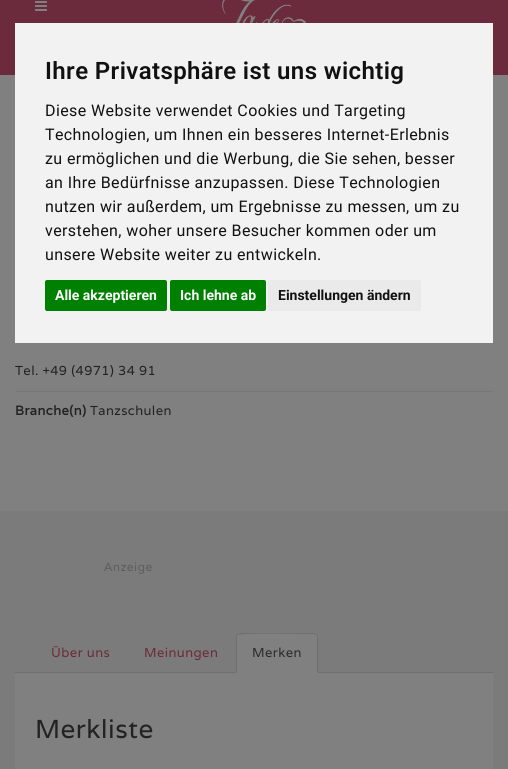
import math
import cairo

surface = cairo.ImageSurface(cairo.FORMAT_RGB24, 508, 769)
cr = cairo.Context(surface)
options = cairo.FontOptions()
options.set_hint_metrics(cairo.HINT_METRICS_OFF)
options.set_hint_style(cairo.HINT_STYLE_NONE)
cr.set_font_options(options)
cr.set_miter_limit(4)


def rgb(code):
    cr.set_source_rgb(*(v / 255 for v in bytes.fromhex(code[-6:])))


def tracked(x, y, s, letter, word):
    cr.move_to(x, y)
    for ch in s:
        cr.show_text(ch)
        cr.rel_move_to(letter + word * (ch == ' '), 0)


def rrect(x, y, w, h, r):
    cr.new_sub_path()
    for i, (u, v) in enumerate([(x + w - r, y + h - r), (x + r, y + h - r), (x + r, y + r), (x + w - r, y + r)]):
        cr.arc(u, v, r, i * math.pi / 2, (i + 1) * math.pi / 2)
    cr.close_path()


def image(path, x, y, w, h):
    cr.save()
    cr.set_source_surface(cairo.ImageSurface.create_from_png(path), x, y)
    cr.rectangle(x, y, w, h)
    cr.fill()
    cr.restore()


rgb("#7b7b7b")
cr.paint()
for x, y, w, h, color in [
    (0, 0, 508, 75, "#6b2b3d"),
    (0, 75, 508, 436, "#808080"),
    (15, 23, 478, 320, "#f2f2f2"),
]:
    rgb(color)
    cr.rectangle(x, y, w, h)
    cr.fill()
rgb("#008000")
rrect(45, 280, 122, 31, 2)
cr.fill()
rrect(170, 280, 96, 31, 2)
cr.fill()
rgb("#eaeaea")
rrect(268, 280, 153, 31, 2)
cr.fill()
image("img/1.png", 35, 1, 12, 10)
image("img/2.png", 222, 0, 84, 23)
rgb("#777777")
cr.rectangle(15, 391, 478, 1)
cr.fill()
rgb("#6f6f6f")
cr.rectangle(15, 672, 478, 1)
cr.fill()
rgb("#808080")
cr.new_path()
cr.move_to(240, 633)
cr.line_to(314, 633)
cr.curve_to(316, 633, 318, 635, 318, 637)
cr.line_to(318, 673)
cr.line_to(236, 673)
cr.line_to(236, 637)
cr.curve_to(236, 635, 238, 633, 240, 633)
cr.close_path()
cr.fill()
rgb("#6f6f6f")
cr.new_path()
cr.move_to(240, 633)
cr.line_to(237, 634)
cr.line_to(238, 635)
cr.curve_to(240, 633, 295, 634, 302, 634)
cr.line_to(314, 634)
cr.line_to(316, 635)
cr.line_to(317, 634)
cr.line_to(314, 633)
cr.close_path()
cr.fill()
cr.new_path()
cr.move_to(318, 673)
cr.line_to(318, 637)
cr.curve_to(318, 636, 317.5, 635, 317, 634)
cr.line_to(316, 635)
cr.curve_to(317, 635, 317, 636, 317, 637)
cr.line_to(317, 672)
cr.close_path()
cr.fill()
cr.new_path()
cr.move_to(236, 673)
cr.line_to(237, 672)
cr.line_to(237, 637)
cr.curve_to(237, 636, 237, 635, 238, 635)
cr.line_to(237, 634)
cr.curve_to(236.5, 635, 236, 636, 236, 637)
cr.close_path()
cr.fill()
rgb("#808080")
cr.rectangle(15, 673, 478, 96)
cr.fill()
cr.select_font_face("Roboto SemiBold")
cr.set_font_size(24)
rgb("#111111")
tracked(45, 79, "Ihre Privatsphäre ist uns wichtig", 0.4, 0)
cr.select_font_face("Roboto")
cr.set_font_size(16)
for x, y, s in [
    (45, 116, "Diese Website verwendet Cookies und Targeting"),
    (45, 140, "Technologien, um Ihnen ein besseres Internet-Erlebnis"),
    (45, 164, "zu ermöglichen und die Werbung, die Sie sehen, besser"),
    (45, 188, "an Ihre Bedürfnisse anzupassen. Diese Technologien"),
    (45, 212, "nutzen wir außerdem, um Ergebnisse zu messen, um zu"),
    (45, 236, "verstehen, woher unsere Besucher kommen oder um"),
    (45, 260, "unsere Website weiter zu entwickeln."),
]:
    tracked(x, y, s, 0.4, 0)
cr.select_font_face("Roboto", cairo.FONT_SLANT_NORMAL, cairo.FONT_WEIGHT_BOLD)
cr.set_font_size(14)
rgb("#ffffff")
cr.move_to(55, 300)
cr.show_text("Alle akzeptieren")
cr.move_to(180, 300)
cr.show_text("Ich lehne ab")
rgb("#111111")
cr.move_to(278, 300)
cr.show_text("Einstellungen ändern")
cr.select_font_face("Varela")
cr.set_font_size(13)
rgb("#222222")
tracked(15, 375, "Tel. +49 (4971) 34 91", 0.4, 0)
cr.select_font_face("Varela", cairo.FONT_SLANT_NORMAL, cairo.FONT_WEIGHT_BOLD)
tracked(15, 415, "Branche(n)", 0.4, 0)
cr.select_font_face("Varela")
tracked(90, 415, "Tanzschulen", 0.4, 0)
cr.set_font_size(12)
rgb("#5e5e5e")
tracked(104, 571, "Anzeige", 0.4, 0)
cr.set_font_size(13)
rgb("#6b2b3d")
tracked(51, 657, "Über uns", 0.4, 0)
tracked(144, 657, "Meinungen", 0.4, 0)
rgb("#2b2b2b")
tracked(252, 657, "Merken", 0.4, 0)
cr.set_font_size(26)
rgb("#222222")
tracked(35, 738, "Merkliste", 0.4, 0)
surface.write_to_png("page.png")
